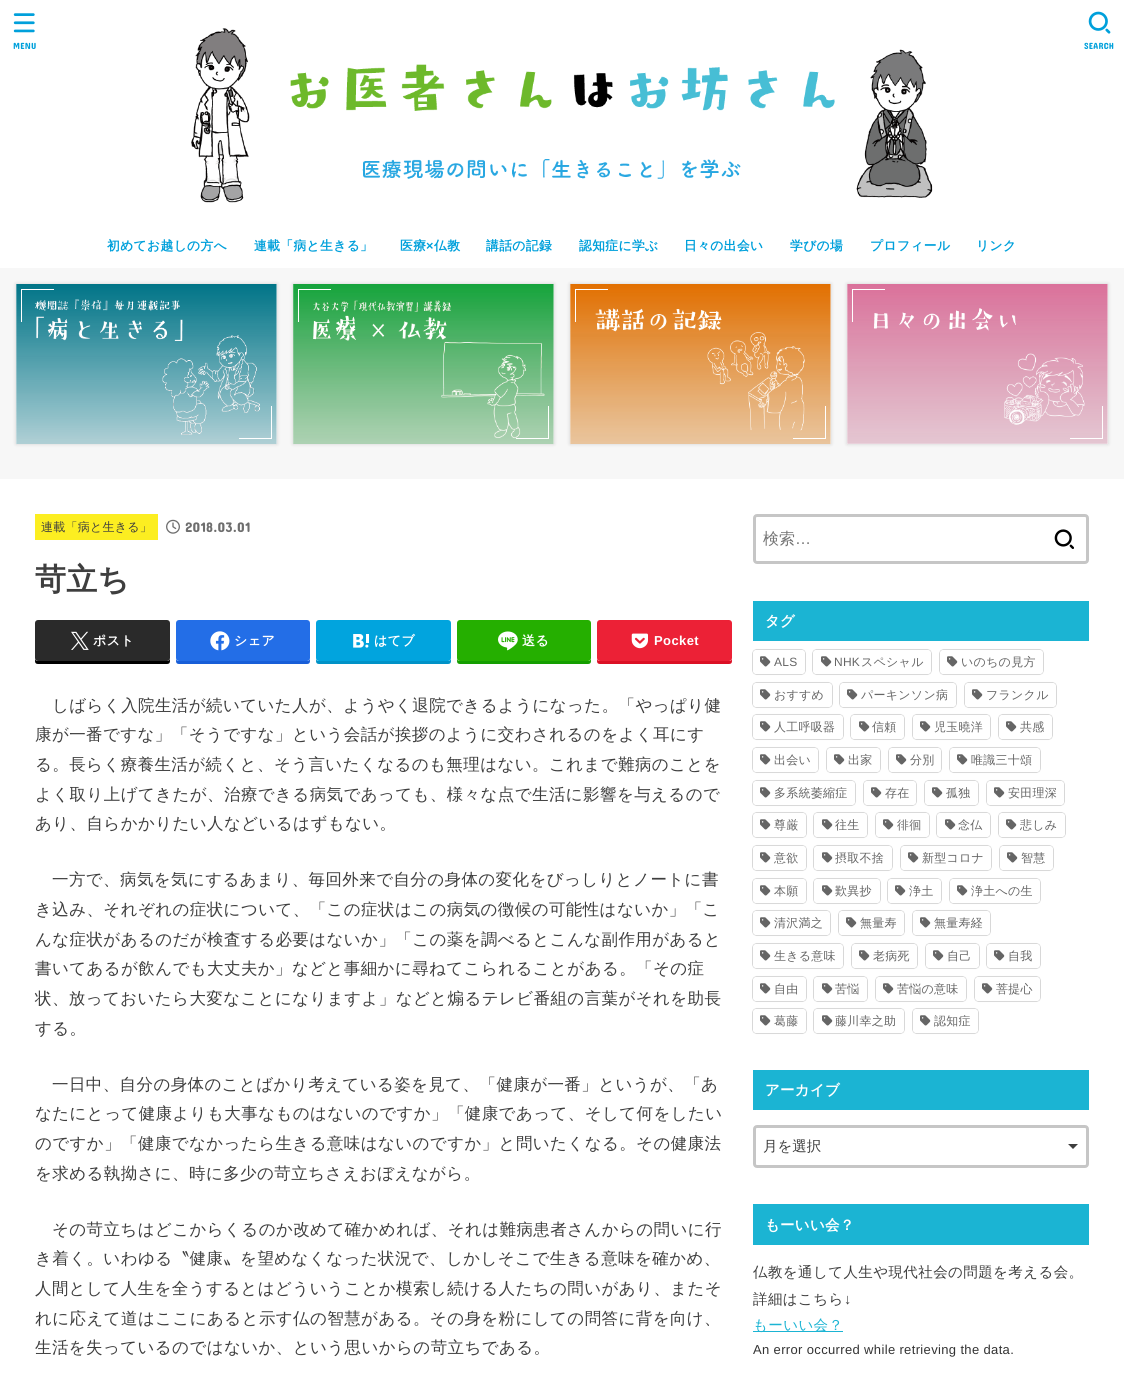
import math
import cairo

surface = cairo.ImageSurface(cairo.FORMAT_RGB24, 1124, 1373)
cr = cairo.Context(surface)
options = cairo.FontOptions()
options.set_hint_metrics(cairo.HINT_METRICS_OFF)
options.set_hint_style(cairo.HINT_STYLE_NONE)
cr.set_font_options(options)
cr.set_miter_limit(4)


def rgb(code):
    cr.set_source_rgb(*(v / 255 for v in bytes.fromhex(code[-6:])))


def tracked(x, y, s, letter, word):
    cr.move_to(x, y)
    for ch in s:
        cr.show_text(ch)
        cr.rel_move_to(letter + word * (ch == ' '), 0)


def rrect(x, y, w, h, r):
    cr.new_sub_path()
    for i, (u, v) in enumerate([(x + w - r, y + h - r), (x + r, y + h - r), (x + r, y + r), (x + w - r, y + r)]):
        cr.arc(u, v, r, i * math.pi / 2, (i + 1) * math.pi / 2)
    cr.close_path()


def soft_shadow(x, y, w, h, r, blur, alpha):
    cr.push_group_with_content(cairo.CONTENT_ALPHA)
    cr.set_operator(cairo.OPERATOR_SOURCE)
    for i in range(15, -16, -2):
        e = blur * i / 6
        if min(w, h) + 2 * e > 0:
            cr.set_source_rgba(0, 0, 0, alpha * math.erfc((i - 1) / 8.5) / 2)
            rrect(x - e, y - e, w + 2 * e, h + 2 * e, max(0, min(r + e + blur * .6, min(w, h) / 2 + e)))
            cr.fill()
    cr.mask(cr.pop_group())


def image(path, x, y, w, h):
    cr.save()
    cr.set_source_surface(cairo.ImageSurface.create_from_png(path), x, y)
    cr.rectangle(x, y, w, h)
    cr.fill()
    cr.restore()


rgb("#f7f7f7")
cr.paint()
rgb("#ffffff")
cr.rectangle(0, 0, 1124, 268)
cr.fill()
image("img/1.png", 13, 13, 22, 20)
image("img/2.png", 191, 28, 742, 175)
image("img/3.png", 1088, 11, 23, 23)
cr.save()
cr.set_fill_rule(cairo.FILL_RULE_EVEN_ODD)
cr.new_path()
cr.move_to(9, 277)
cr.line_to(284, 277)
cr.line_to(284, 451)
cr.line_to(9, 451)
cr.close_path()
cr.move_to(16, 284)
cr.line_to(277, 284)
cr.line_to(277, 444)
cr.line_to(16, 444)
cr.close_path()
cr.clip()
rgb("#000000")
soft_shadow(16, 284, 261, 160, 0, 2, 0.15)
cr.restore()
image("img/4.png", 16, 284, 261, 160)
for x, y, w, h, color in [
    (21, 289, 33, 1, "#ffffff"),
    (21, 289, 1, 33, "#ffffff"),
    (271, 406, 1, 33, "#ffffff"),
    (239, 438, 33, 1, "#ffffff"),
]:
    rgb(color)
    cr.rectangle(x, y, w, h)
    cr.fill()
cr.save()
cr.set_fill_rule(cairo.FILL_RULE_EVEN_ODD)
cr.new_path()
cr.move_to(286, 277)
cr.line_to(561, 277)
cr.line_to(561, 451)
cr.line_to(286, 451)
cr.close_path()
cr.move_to(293, 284)
cr.line_to(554, 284)
cr.line_to(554, 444)
cr.line_to(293, 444)
cr.close_path()
cr.clip()
rgb("#000000")
soft_shadow(293, 284, 261, 160, 0, 2, 0.15)
cr.restore()
image("img/5.png", 293, 284, 261, 160)
for x, y, w, h, color in [
    (298, 289, 33, 1, "#ffffff"),
    (298, 289, 1, 33, "#ffffff"),
    (548, 406, 1, 33, "#ffffff"),
    (516, 438, 33, 1, "#ffffff"),
]:
    rgb(color)
    cr.rectangle(x, y, w, h)
    cr.fill()
cr.save()
cr.set_fill_rule(cairo.FILL_RULE_EVEN_ODD)
cr.new_path()
cr.move_to(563, 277)
cr.line_to(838, 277)
cr.line_to(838, 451)
cr.line_to(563, 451)
cr.close_path()
cr.move_to(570, 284)
cr.line_to(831, 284)
cr.line_to(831, 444)
cr.line_to(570, 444)
cr.close_path()
cr.clip()
rgb("#000000")
soft_shadow(570, 284, 261, 160, 0, 2, 0.15)
cr.restore()
image("img/6.png", 570, 284, 261, 160)
for x, y, w, h, color in [
    (575, 289, 33, 1, "#ffffff"),
    (575, 289, 1, 33, "#ffffff"),
    (825, 406, 1, 33, "#ffffff"),
    (793, 438, 33, 1, "#ffffff"),
]:
    rgb(color)
    cr.rectangle(x, y, w, h)
    cr.fill()
cr.save()
cr.set_fill_rule(cairo.FILL_RULE_EVEN_ODD)
cr.new_path()
cr.move_to(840, 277)
cr.line_to(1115, 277)
cr.line_to(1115, 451)
cr.line_to(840, 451)
cr.close_path()
cr.move_to(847, 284)
cr.line_to(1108, 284)
cr.line_to(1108, 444)
cr.line_to(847, 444)
cr.close_path()
cr.clip()
rgb("#000000")
soft_shadow(847, 284, 261, 160, 0, 2, 0.15)
cr.restore()
image("img/7.png", 847, 284, 261, 160)
for x, y, w, h, color in [
    (852, 289, 33, 1, "#ffffff"),
    (852, 289, 1, 33, "#ffffff"),
    (1102, 406, 1, 33, "#ffffff"),
    (1070, 438, 33, 1, "#ffffff"),
    (0, 479, 1124, 894, "#ffffff"),
    (35, 514, 123, 26, "#fcee21"),
]:
    rgb(color)
    cr.rectangle(x, y, w, h)
    cr.fill()
image("img/8.png", 166, 519, 14, 15)
rgb("#000000")
cr.new_path()
cr.move_to(35, 658)
cr.line_to(35, 661)
cr.curve_to(35, 663, 36, 664, 38, 664)
cr.line_to(167, 664)
cr.curve_to(169, 664, 170, 663, 170, 661)
cr.line_to(170, 658)
cr.curve_to(170, 660, 169, 661, 167, 661)
cr.line_to(38, 661)
cr.curve_to(36, 661, 35, 660, 35, 658)
cr.close_path()
cr.fill()
rgb("#2a2a2a")
rrect(35, 620, 135, 41, 3)
cr.fill()
image("img/9.png", 71, 631, 18, 19)
rgb("#185ed8")
cr.new_path()
cr.move_to(176, 658)
cr.line_to(176, 661)
cr.curve_to(176, 663, 177, 664, 179, 664)
cr.line_to(307, 664)
cr.curve_to(309, 664, 310, 663, 310, 661)
cr.line_to(310, 658)
cr.curve_to(310, 660, 309, 661, 307, 661)
cr.line_to(179, 661)
cr.curve_to(177, 661, 176, 660, 176, 658)
cr.close_path()
cr.fill()
rgb("#236ee7")
rrect(176, 620, 134, 41, 3)
cr.fill()
image("img/10.png", 210, 631, 20, 20)
rgb("#0092c7")
cr.new_path()
cr.move_to(316, 658)
cr.line_to(316, 661)
cr.curve_to(316, 663, 317, 664, 319, 664)
cr.line_to(448, 664)
cr.curve_to(450, 664, 451, 663, 451, 661)
cr.line_to(451, 658)
cr.curve_to(451, 660, 450, 661, 448, 661)
cr.line_to(319, 661)
cr.curve_to(317, 661, 316, 660, 316, 658)
cr.close_path()
cr.fill()
rgb("#01a4de")
rrect(316, 620, 135, 41, 3)
cr.fill()
image("img/11.png", 353, 634, 16, 14)
rgb("#149e00")
cr.new_path()
cr.move_to(457, 658)
cr.line_to(457, 661)
cr.curve_to(457, 663, 458, 664, 460, 664)
cr.line_to(588, 664)
cr.curve_to(590, 664, 591, 663, 591, 661)
cr.line_to(591, 658)
cr.curve_to(591, 660, 590, 661, 588, 661)
cr.line_to(460, 661)
cr.curve_to(458, 661, 457, 660, 457, 658)
cr.close_path()
cr.fill()
rgb("#25af00")
rrect(457, 620, 134, 41, 3)
cr.fill()
image("img/12.png", 498, 631, 20, 20)
rgb("#db1025")
cr.new_path()
cr.move_to(597, 658)
cr.line_to(597, 661)
cr.curve_to(597, 663, 598, 664, 600, 664)
cr.line_to(729, 664)
cr.curve_to(731, 664, 732, 663, 732, 661)
cr.line_to(732, 658)
cr.curve_to(732, 660, 731, 661, 729, 661)
cr.line_to(600, 661)
cr.curve_to(598, 661, 597, 660, 597, 658)
cr.close_path()
cr.fill()
rgb("#ec2136")
rrect(597, 620, 135, 41, 3)
cr.fill()
image("img/13.png", 631, 633, 17, 16)
rrect(754.5, 515.5, 333, 47, 2.5)
rgb("#c6c6c6")
cr.set_line_width(3)
cr.stroke()
image("img/14.png", 1054, 529, 20, 20)
rgb("#1bb4d3")
cr.rectangle(753, 601, 336, 40)
cr.fill()
cr.save()
cr.set_fill_rule(cairo.FILL_RULE_EVEN_ODD)
cr.new_path()
cr.move_to(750, 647)
cr.line_to(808, 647)
cr.line_to(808, 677)
cr.line_to(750, 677)
cr.close_path()
cr.move_to(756, 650)
cr.line_to(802, 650)
cr.curve_to(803.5, 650, 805, 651.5, 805, 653)
cr.line_to(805, 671)
cr.curve_to(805, 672.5, 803.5, 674, 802, 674)
cr.line_to(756, 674)
cr.curve_to(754.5, 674, 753, 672.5, 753, 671)
cr.line_to(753, 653)
cr.curve_to(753, 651.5, 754.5, 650, 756, 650)
cr.close_path()
cr.clip()
rgb("#656565")
soft_shadow(753, 650, 52, 24, 3, 0.5, 1)
cr.restore()
image("img/15.png", 760, 656, 11, 11)
cr.save()
cr.set_fill_rule(cairo.FILL_RULE_EVEN_ODD)
cr.new_path()
cr.move_to(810, 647)
cr.line_to(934, 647)
cr.line_to(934, 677)
cr.line_to(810, 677)
cr.close_path()
cr.move_to(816, 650)
cr.line_to(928, 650)
cr.curve_to(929.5, 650, 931, 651.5, 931, 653)
cr.line_to(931, 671)
cr.curve_to(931, 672.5, 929.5, 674, 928, 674)
cr.line_to(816, 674)
cr.curve_to(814.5, 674, 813, 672.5, 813, 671)
cr.line_to(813, 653)
cr.curve_to(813, 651.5, 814.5, 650, 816, 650)
cr.close_path()
cr.clip()
rgb("#656565")
soft_shadow(813, 650, 118, 24, 3, 0.5, 1)
cr.restore()
image("img/15.png", 821, 656, 11, 11)
cr.save()
cr.set_fill_rule(cairo.FILL_RULE_EVEN_ODD)
cr.new_path()
cr.move_to(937, 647)
cr.line_to(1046, 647)
cr.line_to(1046, 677)
cr.line_to(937, 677)
cr.close_path()
cr.move_to(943, 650)
cr.line_to(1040, 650)
cr.curve_to(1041.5, 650, 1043, 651.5, 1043, 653)
cr.line_to(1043, 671)
cr.curve_to(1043, 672.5, 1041.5, 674, 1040, 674)
cr.line_to(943, 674)
cr.curve_to(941.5, 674, 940, 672.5, 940, 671)
cr.line_to(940, 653)
cr.curve_to(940, 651.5, 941.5, 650, 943, 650)
cr.close_path()
cr.clip()
rgb("#656565")
soft_shadow(940, 650, 103, 24, 3, 0.5, 1)
cr.restore()
image("img/15.png", 947, 656, 11, 11)
cr.save()
cr.set_fill_rule(cairo.FILL_RULE_EVEN_ODD)
cr.new_path()
cr.move_to(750, 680)
cr.line_to(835, 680)
cr.line_to(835, 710)
cr.line_to(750, 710)
cr.close_path()
cr.move_to(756, 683)
cr.line_to(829, 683)
cr.curve_to(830.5, 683, 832, 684.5, 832, 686)
cr.line_to(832, 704)
cr.curve_to(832, 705.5, 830.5, 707, 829, 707)
cr.line_to(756, 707)
cr.curve_to(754.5, 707, 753, 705.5, 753, 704)
cr.line_to(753, 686)
cr.curve_to(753, 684.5, 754.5, 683, 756, 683)
cr.close_path()
cr.clip()
rgb("#656565")
soft_shadow(753, 683, 79, 24, 3, 0.5, 1)
cr.restore()
image("img/15.png", 760, 689, 11, 11)
cr.save()
cr.set_fill_rule(cairo.FILL_RULE_EVEN_ODD)
cr.new_path()
cr.move_to(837, 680)
cr.line_to(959, 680)
cr.line_to(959, 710)
cr.line_to(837, 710)
cr.close_path()
cr.move_to(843, 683)
cr.line_to(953, 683)
cr.curve_to(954.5, 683, 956, 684.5, 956, 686)
cr.line_to(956, 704)
cr.curve_to(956, 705.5, 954.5, 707, 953, 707)
cr.line_to(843, 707)
cr.curve_to(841.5, 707, 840, 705.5, 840, 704)
cr.line_to(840, 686)
cr.curve_to(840, 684.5, 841.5, 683, 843, 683)
cr.close_path()
cr.clip()
rgb("#656565")
soft_shadow(840, 683, 116, 24, 3, 0.5, 1)
cr.restore()
image("img/15.png", 847, 689, 11, 11)
cr.save()
cr.set_fill_rule(cairo.FILL_RULE_EVEN_ODD)
cr.new_path()
cr.move_to(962, 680)
cr.line_to(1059, 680)
cr.line_to(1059, 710)
cr.line_to(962, 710)
cr.close_path()
cr.move_to(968, 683)
cr.line_to(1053, 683)
cr.curve_to(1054.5, 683, 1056, 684.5, 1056, 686)
cr.line_to(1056, 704)
cr.curve_to(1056, 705.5, 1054.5, 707, 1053, 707)
cr.line_to(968, 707)
cr.curve_to(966.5, 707, 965, 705.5, 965, 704)
cr.line_to(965, 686)
cr.curve_to(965, 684.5, 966.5, 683, 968, 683)
cr.close_path()
cr.clip()
rgb("#656565")
soft_shadow(965, 683, 91, 24, 3, 0.5, 1)
cr.restore()
image("img/15.png", 972, 689, 11, 11)
cr.save()
cr.set_fill_rule(cairo.FILL_RULE_EVEN_ODD)
cr.new_path()
cr.move_to(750, 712)
cr.line_to(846, 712)
cr.line_to(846, 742)
cr.line_to(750, 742)
cr.close_path()
cr.move_to(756, 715)
cr.line_to(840, 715)
cr.curve_to(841.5, 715, 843, 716.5, 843, 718)
cr.line_to(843, 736)
cr.curve_to(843, 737.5, 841.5, 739, 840, 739)
cr.line_to(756, 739)
cr.curve_to(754.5, 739, 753, 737.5, 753, 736)
cr.line_to(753, 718)
cr.curve_to(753, 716.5, 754.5, 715, 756, 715)
cr.close_path()
cr.clip()
rgb("#656565")
soft_shadow(753, 715, 90, 24, 3, 0.5, 1)
cr.restore()
image("img/15.png", 760, 721, 11, 11)
cr.save()
cr.set_fill_rule(cairo.FILL_RULE_EVEN_ODD)
cr.new_path()
cr.move_to(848, 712)
cr.line_to(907, 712)
cr.line_to(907, 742)
cr.line_to(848, 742)
cr.close_path()
cr.move_to(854, 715)
cr.line_to(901, 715)
cr.curve_to(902.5, 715, 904, 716.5, 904, 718)
cr.line_to(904, 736)
cr.curve_to(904, 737.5, 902.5, 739, 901, 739)
cr.line_to(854, 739)
cr.curve_to(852.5, 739, 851, 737.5, 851, 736)
cr.line_to(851, 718)
cr.curve_to(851, 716.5, 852.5, 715, 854, 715)
cr.close_path()
cr.clip()
rgb("#656565")
soft_shadow(851, 715, 53, 24, 3, 0.5, 1)
cr.restore()
image("img/15.png", 859, 721, 11, 11)
cr.save()
cr.set_fill_rule(cairo.FILL_RULE_EVEN_ODD)
cr.new_path()
cr.move_to(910, 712)
cr.line_to(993, 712)
cr.line_to(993, 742)
cr.line_to(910, 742)
cr.close_path()
cr.move_to(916, 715)
cr.line_to(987, 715)
cr.curve_to(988.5, 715, 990, 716.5, 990, 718)
cr.line_to(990, 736)
cr.curve_to(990, 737.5, 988.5, 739, 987, 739)
cr.line_to(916, 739)
cr.curve_to(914.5, 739, 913, 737.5, 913, 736)
cr.line_to(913, 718)
cr.curve_to(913, 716.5, 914.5, 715, 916, 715)
cr.close_path()
cr.clip()
rgb("#656565")
soft_shadow(913, 715, 77, 24, 3, 0.5, 1)
cr.restore()
image("img/15.png", 920, 721, 11, 11)
cr.save()
cr.set_fill_rule(cairo.FILL_RULE_EVEN_ODD)
cr.new_path()
cr.move_to(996, 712)
cr.line_to(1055, 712)
cr.line_to(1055, 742)
cr.line_to(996, 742)
cr.close_path()
cr.move_to(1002, 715)
cr.line_to(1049, 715)
cr.curve_to(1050.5, 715, 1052, 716.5, 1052, 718)
cr.line_to(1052, 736)
cr.curve_to(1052, 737.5, 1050.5, 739, 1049, 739)
cr.line_to(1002, 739)
cr.curve_to(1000.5, 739, 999, 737.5, 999, 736)
cr.line_to(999, 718)
cr.curve_to(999, 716.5, 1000.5, 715, 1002, 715)
cr.close_path()
cr.clip()
rgb("#656565")
soft_shadow(999, 715, 53, 24, 3, 0.5, 1)
cr.restore()
image("img/15.png", 1006, 721, 11, 11)
cr.save()
cr.set_fill_rule(cairo.FILL_RULE_EVEN_ODD)
cr.new_path()
cr.move_to(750, 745)
cr.line_to(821, 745)
cr.line_to(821, 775)
cr.line_to(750, 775)
cr.close_path()
cr.move_to(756, 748)
cr.line_to(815, 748)
cr.curve_to(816.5, 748, 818, 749.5, 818, 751)
cr.line_to(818, 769)
cr.curve_to(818, 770.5, 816.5, 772, 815, 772)
cr.line_to(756, 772)
cr.curve_to(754.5, 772, 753, 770.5, 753, 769)
cr.line_to(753, 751)
cr.curve_to(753, 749.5, 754.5, 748, 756, 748)
cr.close_path()
cr.clip()
rgb("#656565")
soft_shadow(753, 748, 65, 24, 3, 0.5, 1)
cr.restore()
image("img/15.png", 760, 754, 11, 11)
cr.save()
cr.set_fill_rule(cairo.FILL_RULE_EVEN_ODD)
cr.new_path()
cr.move_to(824, 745)
cr.line_to(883, 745)
cr.line_to(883, 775)
cr.line_to(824, 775)
cr.close_path()
cr.move_to(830, 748)
cr.line_to(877, 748)
cr.curve_to(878.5, 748, 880, 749.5, 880, 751)
cr.line_to(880, 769)
cr.curve_to(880, 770.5, 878.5, 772, 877, 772)
cr.line_to(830, 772)
cr.curve_to(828.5, 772, 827, 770.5, 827, 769)
cr.line_to(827, 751)
cr.curve_to(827, 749.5, 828.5, 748, 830, 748)
cr.close_path()
cr.clip()
rgb("#656565")
soft_shadow(827, 748, 53, 24, 3, 0.5, 1)
cr.restore()
image("img/15.png", 834, 754, 11, 11)
cr.save()
cr.set_fill_rule(cairo.FILL_RULE_EVEN_ODD)
cr.new_path()
cr.move_to(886, 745)
cr.line_to(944, 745)
cr.line_to(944, 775)
cr.line_to(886, 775)
cr.close_path()
cr.move_to(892, 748)
cr.line_to(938, 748)
cr.curve_to(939.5, 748, 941, 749.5, 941, 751)
cr.line_to(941, 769)
cr.curve_to(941, 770.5, 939.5, 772, 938, 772)
cr.line_to(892, 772)
cr.curve_to(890.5, 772, 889, 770.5, 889, 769)
cr.line_to(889, 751)
cr.curve_to(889, 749.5, 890.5, 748, 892, 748)
cr.close_path()
cr.clip()
rgb("#656565")
soft_shadow(889, 748, 52, 24, 3, 0.5, 1)
cr.restore()
image("img/15.png", 896, 754, 11, 11)
cr.save()
cr.set_fill_rule(cairo.FILL_RULE_EVEN_ODD)
cr.new_path()
cr.move_to(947, 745)
cr.line_to(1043, 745)
cr.line_to(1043, 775)
cr.line_to(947, 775)
cr.close_path()
cr.move_to(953, 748)
cr.line_to(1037, 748)
cr.curve_to(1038.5, 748, 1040, 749.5, 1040, 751)
cr.line_to(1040, 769)
cr.curve_to(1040, 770.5, 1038.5, 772, 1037, 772)
cr.line_to(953, 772)
cr.curve_to(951.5, 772, 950, 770.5, 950, 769)
cr.line_to(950, 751)
cr.curve_to(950, 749.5, 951.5, 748, 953, 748)
cr.close_path()
cr.clip()
rgb("#656565")
soft_shadow(950, 748, 90, 24, 3, 0.5, 1)
cr.restore()
image("img/15.png", 957, 754, 11, 11)
cr.save()
cr.set_fill_rule(cairo.FILL_RULE_EVEN_ODD)
cr.new_path()
cr.move_to(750, 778)
cr.line_to(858, 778)
cr.line_to(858, 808)
cr.line_to(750, 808)
cr.close_path()
cr.move_to(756, 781)
cr.line_to(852, 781)
cr.curve_to(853.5, 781, 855, 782.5, 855, 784)
cr.line_to(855, 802)
cr.curve_to(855, 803.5, 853.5, 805, 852, 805)
cr.line_to(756, 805)
cr.curve_to(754.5, 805, 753, 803.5, 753, 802)
cr.line_to(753, 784)
cr.curve_to(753, 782.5, 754.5, 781, 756, 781)
cr.close_path()
cr.clip()
rgb("#656565")
soft_shadow(753, 781, 102, 24, 3, 0.5, 1)
cr.restore()
image("img/15.png", 760, 787, 11, 11)
cr.save()
cr.set_fill_rule(cairo.FILL_RULE_EVEN_ODD)
cr.new_path()
cr.move_to(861, 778)
cr.line_to(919, 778)
cr.line_to(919, 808)
cr.line_to(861, 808)
cr.close_path()
cr.move_to(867, 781)
cr.line_to(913, 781)
cr.curve_to(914.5, 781, 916, 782.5, 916, 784)
cr.line_to(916, 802)
cr.curve_to(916, 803.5, 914.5, 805, 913, 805)
cr.line_to(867, 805)
cr.curve_to(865.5, 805, 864, 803.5, 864, 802)
cr.line_to(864, 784)
cr.curve_to(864, 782.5, 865.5, 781, 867, 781)
cr.close_path()
cr.clip()
rgb("#656565")
soft_shadow(864, 781, 52, 24, 3, 0.5, 1)
cr.restore()
image("img/15.png", 871, 787, 11, 11)
cr.save()
cr.set_fill_rule(cairo.FILL_RULE_EVEN_ODD)
cr.new_path()
cr.move_to(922, 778)
cr.line_to(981, 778)
cr.line_to(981, 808)
cr.line_to(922, 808)
cr.close_path()
cr.move_to(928, 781)
cr.line_to(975, 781)
cr.curve_to(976.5, 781, 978, 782.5, 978, 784)
cr.line_to(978, 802)
cr.curve_to(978, 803.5, 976.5, 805, 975, 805)
cr.line_to(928, 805)
cr.curve_to(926.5, 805, 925, 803.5, 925, 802)
cr.line_to(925, 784)
cr.curve_to(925, 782.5, 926.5, 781, 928, 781)
cr.close_path()
cr.clip()
rgb("#656565")
soft_shadow(925, 781, 53, 24, 3, 0.5, 1)
cr.restore()
image("img/15.png", 932, 787, 11, 11)
cr.save()
cr.set_fill_rule(cairo.FILL_RULE_EVEN_ODD)
cr.new_path()
cr.move_to(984, 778)
cr.line_to(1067, 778)
cr.line_to(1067, 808)
cr.line_to(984, 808)
cr.close_path()
cr.move_to(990, 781)
cr.line_to(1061, 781)
cr.curve_to(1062.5, 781, 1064, 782.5, 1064, 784)
cr.line_to(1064, 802)
cr.curve_to(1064, 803.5, 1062.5, 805, 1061, 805)
cr.line_to(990, 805)
cr.curve_to(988.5, 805, 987, 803.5, 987, 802)
cr.line_to(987, 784)
cr.curve_to(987, 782.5, 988.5, 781, 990, 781)
cr.close_path()
cr.clip()
rgb("#656565")
soft_shadow(987, 781, 77, 24, 3, 0.5, 1)
cr.restore()
image("img/15.png", 994, 787, 11, 11)
cr.save()
cr.set_fill_rule(cairo.FILL_RULE_EVEN_ODD)
cr.new_path()
cr.move_to(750, 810)
cr.line_to(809, 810)
cr.line_to(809, 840)
cr.line_to(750, 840)
cr.close_path()
cr.move_to(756, 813)
cr.line_to(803, 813)
cr.curve_to(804.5, 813, 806, 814.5, 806, 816)
cr.line_to(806, 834)
cr.curve_to(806, 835.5, 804.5, 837, 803, 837)
cr.line_to(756, 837)
cr.curve_to(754.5, 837, 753, 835.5, 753, 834)
cr.line_to(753, 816)
cr.curve_to(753, 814.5, 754.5, 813, 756, 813)
cr.close_path()
cr.clip()
rgb("#656565")
soft_shadow(753, 813, 53, 24, 3, 0.5, 1)
cr.restore()
image("img/15.png", 760, 819, 11, 11)
cr.save()
cr.set_fill_rule(cairo.FILL_RULE_EVEN_ODD)
cr.new_path()
cr.move_to(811, 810)
cr.line_to(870, 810)
cr.line_to(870, 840)
cr.line_to(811, 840)
cr.close_path()
cr.move_to(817, 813)
cr.line_to(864, 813)
cr.curve_to(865.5, 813, 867, 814.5, 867, 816)
cr.line_to(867, 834)
cr.curve_to(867, 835.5, 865.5, 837, 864, 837)
cr.line_to(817, 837)
cr.curve_to(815.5, 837, 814, 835.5, 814, 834)
cr.line_to(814, 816)
cr.curve_to(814, 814.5, 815.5, 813, 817, 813)
cr.close_path()
cr.clip()
rgb("#656565")
soft_shadow(814, 813, 53, 24, 3, 0.5, 1)
cr.restore()
image("img/15.png", 822, 819, 11, 11)
cr.save()
cr.set_fill_rule(cairo.FILL_RULE_EVEN_ODD)
cr.new_path()
cr.move_to(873, 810)
cr.line_to(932, 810)
cr.line_to(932, 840)
cr.line_to(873, 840)
cr.close_path()
cr.move_to(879, 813)
cr.line_to(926, 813)
cr.curve_to(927.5, 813, 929, 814.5, 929, 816)
cr.line_to(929, 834)
cr.curve_to(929, 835.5, 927.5, 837, 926, 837)
cr.line_to(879, 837)
cr.curve_to(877.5, 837, 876, 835.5, 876, 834)
cr.line_to(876, 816)
cr.curve_to(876, 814.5, 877.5, 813, 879, 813)
cr.close_path()
cr.clip()
rgb("#656565")
soft_shadow(876, 813, 53, 24, 3, 0.5, 1)
cr.restore()
image("img/15.png", 883, 819, 11, 11)
cr.save()
cr.set_fill_rule(cairo.FILL_RULE_EVEN_ODD)
cr.new_path()
cr.move_to(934, 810)
cr.line_to(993, 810)
cr.line_to(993, 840)
cr.line_to(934, 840)
cr.close_path()
cr.move_to(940, 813)
cr.line_to(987, 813)
cr.curve_to(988.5, 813, 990, 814.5, 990, 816)
cr.line_to(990, 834)
cr.curve_to(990, 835.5, 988.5, 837, 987, 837)
cr.line_to(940, 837)
cr.curve_to(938.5, 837, 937, 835.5, 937, 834)
cr.line_to(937, 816)
cr.curve_to(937, 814.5, 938.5, 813, 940, 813)
cr.close_path()
cr.clip()
rgb("#656565")
soft_shadow(937, 813, 53, 24, 3, 0.5, 1)
cr.restore()
image("img/15.png", 945, 819, 11, 11)
cr.save()
cr.set_fill_rule(cairo.FILL_RULE_EVEN_ODD)
cr.new_path()
cr.move_to(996, 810)
cr.line_to(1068, 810)
cr.line_to(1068, 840)
cr.line_to(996, 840)
cr.close_path()
cr.move_to(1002, 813)
cr.line_to(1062, 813)
cr.curve_to(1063.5, 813, 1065, 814.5, 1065, 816)
cr.line_to(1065, 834)
cr.curve_to(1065, 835.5, 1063.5, 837, 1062, 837)
cr.line_to(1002, 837)
cr.curve_to(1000.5, 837, 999, 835.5, 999, 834)
cr.line_to(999, 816)
cr.curve_to(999, 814.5, 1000.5, 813, 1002, 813)
cr.close_path()
cr.clip()
rgb("#656565")
soft_shadow(999, 813, 66, 24, 3, 0.5, 1)
cr.restore()
image("img/15.png", 1006, 819, 11, 11)
cr.save()
cr.set_fill_rule(cairo.FILL_RULE_EVEN_ODD)
cr.new_path()
cr.move_to(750, 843)
cr.line_to(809, 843)
cr.line_to(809, 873)
cr.line_to(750, 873)
cr.close_path()
cr.move_to(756, 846)
cr.line_to(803, 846)
cr.curve_to(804.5, 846, 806, 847.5, 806, 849)
cr.line_to(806, 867)
cr.curve_to(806, 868.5, 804.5, 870, 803, 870)
cr.line_to(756, 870)
cr.curve_to(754.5, 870, 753, 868.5, 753, 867)
cr.line_to(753, 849)
cr.curve_to(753, 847.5, 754.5, 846, 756, 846)
cr.close_path()
cr.clip()
rgb("#656565")
soft_shadow(753, 846, 53, 24, 3, 0.5, 1)
cr.restore()
image("img/15.png", 760, 852, 11, 11)
cr.save()
cr.set_fill_rule(cairo.FILL_RULE_EVEN_ODD)
cr.new_path()
cr.move_to(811, 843)
cr.line_to(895, 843)
cr.line_to(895, 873)
cr.line_to(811, 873)
cr.close_path()
cr.move_to(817, 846)
cr.line_to(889, 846)
cr.curve_to(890.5, 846, 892, 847.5, 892, 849)
cr.line_to(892, 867)
cr.curve_to(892, 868.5, 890.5, 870, 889, 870)
cr.line_to(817, 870)
cr.curve_to(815.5, 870, 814, 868.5, 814, 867)
cr.line_to(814, 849)
cr.curve_to(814, 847.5, 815.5, 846, 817, 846)
cr.close_path()
cr.clip()
rgb("#656565")
soft_shadow(814, 846, 78, 24, 3, 0.5, 1)
cr.restore()
image("img/15.png", 822, 852, 11, 11)
cr.save()
cr.set_fill_rule(cairo.FILL_RULE_EVEN_ODD)
cr.new_path()
cr.move_to(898, 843)
cr.line_to(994, 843)
cr.line_to(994, 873)
cr.line_to(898, 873)
cr.close_path()
cr.move_to(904, 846)
cr.line_to(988, 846)
cr.curve_to(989.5, 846, 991, 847.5, 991, 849)
cr.line_to(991, 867)
cr.curve_to(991, 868.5, 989.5, 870, 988, 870)
cr.line_to(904, 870)
cr.curve_to(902.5, 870, 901, 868.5, 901, 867)
cr.line_to(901, 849)
cr.curve_to(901, 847.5, 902.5, 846, 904, 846)
cr.close_path()
cr.clip()
rgb("#656565")
soft_shadow(901, 846, 90, 24, 3, 0.5, 1)
cr.restore()
image("img/15.png", 908, 852, 11, 11)
cr.save()
cr.set_fill_rule(cairo.FILL_RULE_EVEN_ODD)
cr.new_path()
cr.move_to(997, 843)
cr.line_to(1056, 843)
cr.line_to(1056, 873)
cr.line_to(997, 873)
cr.close_path()
cr.move_to(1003, 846)
cr.line_to(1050, 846)
cr.curve_to(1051.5, 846, 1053, 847.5, 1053, 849)
cr.line_to(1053, 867)
cr.curve_to(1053, 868.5, 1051.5, 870, 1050, 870)
cr.line_to(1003, 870)
cr.curve_to(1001.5, 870, 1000, 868.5, 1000, 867)
cr.line_to(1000, 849)
cr.curve_to(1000, 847.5, 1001.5, 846, 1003, 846)
cr.close_path()
cr.clip()
rgb("#656565")
soft_shadow(1000, 846, 53, 24, 3, 0.5, 1)
cr.restore()
image("img/15.png", 1007, 852, 11, 11)
cr.save()
cr.set_fill_rule(cairo.FILL_RULE_EVEN_ODD)
cr.new_path()
cr.move_to(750, 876)
cr.line_to(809, 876)
cr.line_to(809, 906)
cr.line_to(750, 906)
cr.close_path()
cr.move_to(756, 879)
cr.line_to(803, 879)
cr.curve_to(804.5, 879, 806, 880.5, 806, 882)
cr.line_to(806, 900)
cr.curve_to(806, 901.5, 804.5, 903, 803, 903)
cr.line_to(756, 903)
cr.curve_to(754.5, 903, 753, 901.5, 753, 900)
cr.line_to(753, 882)
cr.curve_to(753, 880.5, 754.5, 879, 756, 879)
cr.close_path()
cr.clip()
rgb("#656565")
soft_shadow(753, 879, 53, 24, 3, 0.5, 1)
cr.restore()
image("img/15.png", 760, 885, 11, 11)
cr.save()
cr.set_fill_rule(cairo.FILL_RULE_EVEN_ODD)
cr.new_path()
cr.move_to(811, 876)
cr.line_to(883, 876)
cr.line_to(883, 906)
cr.line_to(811, 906)
cr.close_path()
cr.move_to(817, 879)
cr.line_to(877, 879)
cr.curve_to(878.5, 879, 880, 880.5, 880, 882)
cr.line_to(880, 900)
cr.curve_to(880, 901.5, 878.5, 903, 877, 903)
cr.line_to(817, 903)
cr.curve_to(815.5, 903, 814, 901.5, 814, 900)
cr.line_to(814, 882)
cr.curve_to(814, 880.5, 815.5, 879, 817, 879)
cr.close_path()
cr.clip()
rgb("#656565")
soft_shadow(814, 879, 66, 24, 3, 0.5, 1)
cr.restore()
image("img/15.png", 822, 885, 11, 11)
cr.save()
cr.set_fill_rule(cairo.FILL_RULE_EVEN_ODD)
cr.new_path()
cr.move_to(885, 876)
cr.line_to(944, 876)
cr.line_to(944, 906)
cr.line_to(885, 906)
cr.close_path()
cr.move_to(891, 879)
cr.line_to(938, 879)
cr.curve_to(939.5, 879, 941, 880.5, 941, 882)
cr.line_to(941, 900)
cr.curve_to(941, 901.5, 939.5, 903, 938, 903)
cr.line_to(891, 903)
cr.curve_to(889.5, 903, 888, 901.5, 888, 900)
cr.line_to(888, 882)
cr.curve_to(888, 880.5, 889.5, 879, 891, 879)
cr.close_path()
cr.clip()
rgb("#656565")
soft_shadow(888, 879, 53, 24, 3, 0.5, 1)
cr.restore()
image("img/15.png", 895, 885, 11, 11)
cr.save()
cr.set_fill_rule(cairo.FILL_RULE_EVEN_ODD)
cr.new_path()
cr.move_to(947, 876)
cr.line_to(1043, 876)
cr.line_to(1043, 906)
cr.line_to(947, 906)
cr.close_path()
cr.move_to(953, 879)
cr.line_to(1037, 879)
cr.curve_to(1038.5, 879, 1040, 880.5, 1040, 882)
cr.line_to(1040, 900)
cr.curve_to(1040, 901.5, 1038.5, 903, 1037, 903)
cr.line_to(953, 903)
cr.curve_to(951.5, 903, 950, 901.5, 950, 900)
cr.line_to(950, 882)
cr.curve_to(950, 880.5, 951.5, 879, 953, 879)
cr.close_path()
cr.clip()
rgb("#656565")
soft_shadow(950, 879, 90, 24, 3, 0.5, 1)
cr.restore()
image("img/15.png", 957, 885, 11, 11)
cr.save()
cr.set_fill_rule(cairo.FILL_RULE_EVEN_ODD)
cr.new_path()
cr.move_to(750, 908)
cr.line_to(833, 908)
cr.line_to(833, 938)
cr.line_to(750, 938)
cr.close_path()
cr.move_to(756, 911)
cr.line_to(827, 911)
cr.curve_to(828.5, 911, 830, 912.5, 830, 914)
cr.line_to(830, 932)
cr.curve_to(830, 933.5, 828.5, 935, 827, 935)
cr.line_to(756, 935)
cr.curve_to(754.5, 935, 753, 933.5, 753, 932)
cr.line_to(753, 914)
cr.curve_to(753, 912.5, 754.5, 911, 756, 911)
cr.close_path()
cr.clip()
rgb("#656565")
soft_shadow(753, 911, 77, 24, 3, 0.5, 1)
cr.restore()
image("img/15.png", 760, 917, 11, 11)
cr.save()
cr.set_fill_rule(cairo.FILL_RULE_EVEN_ODD)
cr.new_path()
cr.move_to(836, 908)
cr.line_to(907, 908)
cr.line_to(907, 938)
cr.line_to(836, 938)
cr.close_path()
cr.move_to(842, 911)
cr.line_to(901, 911)
cr.curve_to(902.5, 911, 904, 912.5, 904, 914)
cr.line_to(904, 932)
cr.curve_to(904, 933.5, 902.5, 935, 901, 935)
cr.line_to(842, 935)
cr.curve_to(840.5, 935, 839, 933.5, 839, 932)
cr.line_to(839, 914)
cr.curve_to(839, 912.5, 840.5, 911, 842, 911)
cr.close_path()
cr.clip()
rgb("#656565")
soft_shadow(839, 911, 65, 24, 3, 0.5, 1)
cr.restore()
image("img/15.png", 846, 917, 11, 11)
cr.save()
cr.set_fill_rule(cairo.FILL_RULE_EVEN_ODD)
cr.new_path()
cr.move_to(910, 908)
cr.line_to(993, 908)
cr.line_to(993, 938)
cr.line_to(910, 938)
cr.close_path()
cr.move_to(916, 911)
cr.line_to(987, 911)
cr.curve_to(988.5, 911, 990, 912.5, 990, 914)
cr.line_to(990, 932)
cr.curve_to(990, 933.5, 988.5, 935, 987, 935)
cr.line_to(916, 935)
cr.curve_to(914.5, 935, 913, 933.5, 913, 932)
cr.line_to(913, 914)
cr.curve_to(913, 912.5, 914.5, 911, 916, 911)
cr.close_path()
cr.clip()
rgb("#656565")
soft_shadow(913, 911, 77, 24, 3, 0.5, 1)
cr.restore()
image("img/15.png", 920, 917, 11, 11)
cr.save()
cr.set_fill_rule(cairo.FILL_RULE_EVEN_ODD)
cr.new_path()
cr.move_to(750, 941)
cr.line_to(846, 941)
cr.line_to(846, 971)
cr.line_to(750, 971)
cr.close_path()
cr.move_to(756, 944)
cr.line_to(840, 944)
cr.curve_to(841.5, 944, 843, 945.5, 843, 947)
cr.line_to(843, 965)
cr.curve_to(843, 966.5, 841.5, 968, 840, 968)
cr.line_to(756, 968)
cr.curve_to(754.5, 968, 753, 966.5, 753, 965)
cr.line_to(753, 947)
cr.curve_to(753, 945.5, 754.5, 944, 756, 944)
cr.close_path()
cr.clip()
rgb("#656565")
soft_shadow(753, 944, 90, 24, 3, 0.5, 1)
cr.restore()
image("img/15.png", 760, 950, 11, 11)
cr.save()
cr.set_fill_rule(cairo.FILL_RULE_EVEN_ODD)
cr.new_path()
cr.move_to(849, 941)
cr.line_to(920, 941)
cr.line_to(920, 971)
cr.line_to(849, 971)
cr.close_path()
cr.move_to(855, 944)
cr.line_to(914, 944)
cr.curve_to(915.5, 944, 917, 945.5, 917, 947)
cr.line_to(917, 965)
cr.curve_to(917, 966.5, 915.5, 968, 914, 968)
cr.line_to(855, 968)
cr.curve_to(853.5, 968, 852, 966.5, 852, 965)
cr.line_to(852, 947)
cr.curve_to(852, 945.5, 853.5, 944, 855, 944)
cr.close_path()
cr.clip()
rgb("#656565")
soft_shadow(852, 944, 65, 24, 3, 0.5, 1)
cr.restore()
image("img/15.png", 859, 950, 11, 11)
cr.save()
cr.set_fill_rule(cairo.FILL_RULE_EVEN_ODD)
cr.new_path()
cr.move_to(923, 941)
cr.line_to(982, 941)
cr.line_to(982, 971)
cr.line_to(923, 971)
cr.close_path()
cr.move_to(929, 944)
cr.line_to(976, 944)
cr.curve_to(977.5, 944, 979, 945.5, 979, 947)
cr.line_to(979, 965)
cr.curve_to(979, 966.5, 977.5, 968, 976, 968)
cr.line_to(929, 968)
cr.curve_to(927.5, 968, 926, 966.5, 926, 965)
cr.line_to(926, 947)
cr.curve_to(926, 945.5, 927.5, 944, 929, 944)
cr.close_path()
cr.clip()
rgb("#656565")
soft_shadow(926, 944, 53, 24, 3, 0.5, 1)
cr.restore()
image("img/15.png", 933, 950, 11, 11)
cr.save()
cr.set_fill_rule(cairo.FILL_RULE_EVEN_ODD)
cr.new_path()
cr.move_to(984, 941)
cr.line_to(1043, 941)
cr.line_to(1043, 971)
cr.line_to(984, 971)
cr.close_path()
cr.move_to(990, 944)
cr.line_to(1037, 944)
cr.curve_to(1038.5, 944, 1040, 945.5, 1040, 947)
cr.line_to(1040, 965)
cr.curve_to(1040, 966.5, 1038.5, 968, 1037, 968)
cr.line_to(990, 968)
cr.curve_to(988.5, 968, 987, 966.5, 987, 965)
cr.line_to(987, 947)
cr.curve_to(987, 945.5, 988.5, 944, 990, 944)
cr.close_path()
cr.clip()
rgb("#656565")
soft_shadow(987, 944, 53, 24, 3, 0.5, 1)
cr.restore()
image("img/15.png", 994, 950, 11, 11)
cr.save()
cr.set_fill_rule(cairo.FILL_RULE_EVEN_ODD)
cr.new_path()
cr.move_to(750, 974)
cr.line_to(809, 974)
cr.line_to(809, 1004)
cr.line_to(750, 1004)
cr.close_path()
cr.move_to(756, 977)
cr.line_to(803, 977)
cr.curve_to(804.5, 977, 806, 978.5, 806, 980)
cr.line_to(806, 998)
cr.curve_to(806, 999.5, 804.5, 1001, 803, 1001)
cr.line_to(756, 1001)
cr.curve_to(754.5, 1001, 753, 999.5, 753, 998)
cr.line_to(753, 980)
cr.curve_to(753, 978.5, 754.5, 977, 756, 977)
cr.close_path()
cr.clip()
rgb("#656565")
soft_shadow(753, 977, 53, 24, 3, 0.5, 1)
cr.restore()
image("img/15.png", 760, 983, 11, 11)
cr.save()
cr.set_fill_rule(cairo.FILL_RULE_EVEN_ODD)
cr.new_path()
cr.move_to(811, 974)
cr.line_to(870, 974)
cr.line_to(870, 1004)
cr.line_to(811, 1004)
cr.close_path()
cr.move_to(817, 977)
cr.line_to(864, 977)
cr.curve_to(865.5, 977, 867, 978.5, 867, 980)
cr.line_to(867, 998)
cr.curve_to(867, 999.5, 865.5, 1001, 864, 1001)
cr.line_to(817, 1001)
cr.curve_to(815.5, 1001, 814, 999.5, 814, 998)
cr.line_to(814, 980)
cr.curve_to(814, 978.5, 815.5, 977, 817, 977)
cr.close_path()
cr.clip()
rgb("#656565")
soft_shadow(814, 977, 53, 24, 3, 0.5, 1)
cr.restore()
image("img/15.png", 822, 983, 11, 11)
cr.save()
cr.set_fill_rule(cairo.FILL_RULE_EVEN_ODD)
cr.new_path()
cr.move_to(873, 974)
cr.line_to(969, 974)
cr.line_to(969, 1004)
cr.line_to(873, 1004)
cr.close_path()
cr.move_to(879, 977)
cr.line_to(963, 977)
cr.curve_to(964.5, 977, 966, 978.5, 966, 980)
cr.line_to(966, 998)
cr.curve_to(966, 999.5, 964.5, 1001, 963, 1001)
cr.line_to(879, 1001)
cr.curve_to(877.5, 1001, 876, 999.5, 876, 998)
cr.line_to(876, 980)
cr.curve_to(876, 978.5, 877.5, 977, 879, 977)
cr.close_path()
cr.clip()
rgb("#656565")
soft_shadow(876, 977, 90, 24, 3, 0.5, 1)
cr.restore()
image("img/15.png", 883, 983, 11, 11)
cr.save()
cr.set_fill_rule(cairo.FILL_RULE_EVEN_ODD)
cr.new_path()
cr.move_to(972, 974)
cr.line_to(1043, 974)
cr.line_to(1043, 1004)
cr.line_to(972, 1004)
cr.close_path()
cr.move_to(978, 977)
cr.line_to(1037, 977)
cr.curve_to(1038.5, 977, 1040, 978.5, 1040, 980)
cr.line_to(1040, 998)
cr.curve_to(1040, 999.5, 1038.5, 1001, 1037, 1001)
cr.line_to(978, 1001)
cr.curve_to(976.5, 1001, 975, 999.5, 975, 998)
cr.line_to(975, 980)
cr.curve_to(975, 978.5, 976.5, 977, 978, 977)
cr.close_path()
cr.clip()
rgb("#656565")
soft_shadow(975, 977, 65, 24, 3, 0.5, 1)
cr.restore()
image("img/15.png", 982, 983, 11, 11)
cr.save()
cr.set_fill_rule(cairo.FILL_RULE_EVEN_ODD)
cr.new_path()
cr.move_to(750, 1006)
cr.line_to(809, 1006)
cr.line_to(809, 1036)
cr.line_to(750, 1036)
cr.close_path()
cr.move_to(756, 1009)
cr.line_to(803, 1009)
cr.curve_to(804.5, 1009, 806, 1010.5, 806, 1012)
cr.line_to(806, 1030)
cr.curve_to(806, 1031.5, 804.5, 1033, 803, 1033)
cr.line_to(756, 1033)
cr.curve_to(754.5, 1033, 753, 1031.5, 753, 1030)
cr.line_to(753, 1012)
cr.curve_to(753, 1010.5, 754.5, 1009, 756, 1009)
cr.close_path()
cr.clip()
rgb("#656565")
soft_shadow(753, 1009, 53, 24, 3, 0.5, 1)
cr.restore()
image("img/15.png", 760, 1015, 11, 11)
cr.save()
cr.set_fill_rule(cairo.FILL_RULE_EVEN_ODD)
cr.new_path()
cr.move_to(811, 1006)
cr.line_to(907, 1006)
cr.line_to(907, 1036)
cr.line_to(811, 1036)
cr.close_path()
cr.move_to(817, 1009)
cr.line_to(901, 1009)
cr.curve_to(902.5, 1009, 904, 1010.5, 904, 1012)
cr.line_to(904, 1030)
cr.curve_to(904, 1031.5, 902.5, 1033, 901, 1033)
cr.line_to(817, 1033)
cr.curve_to(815.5, 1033, 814, 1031.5, 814, 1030)
cr.line_to(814, 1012)
cr.curve_to(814, 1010.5, 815.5, 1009, 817, 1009)
cr.close_path()
cr.clip()
rgb("#656565")
soft_shadow(814, 1009, 90, 24, 3, 0.5, 1)
cr.restore()
image("img/15.png", 822, 1015, 11, 11)
cr.save()
cr.set_fill_rule(cairo.FILL_RULE_EVEN_ODD)
cr.new_path()
cr.move_to(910, 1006)
cr.line_to(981, 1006)
cr.line_to(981, 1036)
cr.line_to(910, 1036)
cr.close_path()
cr.move_to(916, 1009)
cr.line_to(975, 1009)
cr.curve_to(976.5, 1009, 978, 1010.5, 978, 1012)
cr.line_to(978, 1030)
cr.curve_to(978, 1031.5, 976.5, 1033, 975, 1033)
cr.line_to(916, 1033)
cr.curve_to(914.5, 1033, 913, 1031.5, 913, 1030)
cr.line_to(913, 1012)
cr.curve_to(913, 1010.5, 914.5, 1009, 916, 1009)
cr.close_path()
cr.clip()
rgb("#656565")
soft_shadow(913, 1009, 65, 24, 3, 0.5, 1)
cr.restore()
image("img/15.png", 920, 1015, 11, 11)
cr.rectangle(753, 1070, 336, 40)
cr.fill()
rgb("#3e3e3e")
cr.new_path()
cr.move_to(1068, 1144)
cr.line_to(1078, 1144)
cr.line_to(1073, 1149)
cr.close_path()
cr.fill()
rrect(754.5, 1126.5, 333, 40, 2.5)
rgb("#c6c6c6")
cr.stroke()
rgb("#1bb4d3")
cr.rectangle(753, 1204, 336, 41)
cr.fill()
cr.rectangle(753, 1331, 90, 1)
cr.fill()
cr.select_font_face("Concert One")
cr.set_font_size(9)
rgb("#00a0db")
tracked(13, 49, "MENU", 0.25, 0)
tracked(1084, 49, "SEARCH", 0.25, 0)
cr.select_font_face("WenQuanYi Zen Hei", cairo.FONT_SLANT_NORMAL, cairo.FONT_WEIGHT_BOLD)
cr.set_font_size(12.75)
for x, y, s in [
    (107, 250, "初めてお越しの方へ"),
    (254, 250, "連載「病と生きる」"),
    (400, 250, "医療"),
]:
    tracked(x, y, s, 0.4, 0)
cr.select_font_face("Liberation Sans", cairo.FONT_SLANT_NORMAL, cairo.FONT_WEIGHT_BOLD)
tracked(426, 250, "×", 0.4, 0)
cr.select_font_face("WenQuanYi Zen Hei", cairo.FONT_SLANT_NORMAL, cairo.FONT_WEIGHT_BOLD)
for x, y, s in [
    (434, 250, "仏教"),
    (486, 250, "講話の記録"),
    (579, 250, "認知症に学ぶ"),
    (684, 250, "日々の出会い"),
    (790, 250, "学びの場"),
    (870, 250, "プロフィール"),
    (976, 250, "リンク"),
]:
    tracked(x, y, s, 0.4, 0)
cr.select_font_face("WenQuanYi Zen Hei Medium")
cr.set_font_size(12)
rgb("#3e3e3e")
tracked(41, 531, "連載「病と生きる」", 0.25, 0)
cr.select_font_face("Concert One")
cr.set_font_size(14)
rgb("#6e6e6e")
tracked(185, 532, "2018.03.01", 0.25, 0)
cr.select_font_face("WenQuanYi Zen Hei", cairo.FONT_SLANT_NORMAL, cairo.FONT_WEIGHT_BOLD)
cr.set_font_size(31)
rgb("#3e3e3e")
tracked(35, 590, "苛立ち", 0.25, 0)
cr.set_font_size(13)
rgb("#ffffff")
for x, y, s in [
    (93, 645, "ポスト"),
    (234, 645, "シェア"),
    (374, 645, "はてブ"),
    (522, 645, "送る"),
]:
    tracked(x, y, s, 0.4, 0)
cr.select_font_face("Liberation Sans", cairo.FONT_SLANT_NORMAL, cairo.FONT_WEIGHT_BOLD)
tracked(654, 645, "Pocket", 0.4, 0)
cr.select_font_face("WenQuanYi Zen Hei Medium")
cr.set_font_size(16.5)
rgb("#3e3e3e")
for x, y, s in [
    (52, 711, "しばらく入院生活が続いていた人が、ようやく退院できるようになった。「やっぱり健"),
    (35, 740, "康が一番ですな」「そうですな」という会話が挨拶のように交わされるのをよく耳にす"),
    (35, 770, "る。長らく療養生活が続くと、そう言いたくなるのも無理はない。これまで難病のことを"),
    (35, 800, "よく取り上げてきたが、治療できる病気であっても、様々な点で生活に影響を与えるので"),
    (35, 829, "あり、自らかかりたい人などいるはずもない。"),
    (52, 885, "一方で、病気を気にするあまり、毎回外来で自分の身体の変化をびっしりとノートに書"),
    (35, 915, "き込み、それぞれの症状について、「この症状はこの病気の徴候の可能性はないか」「こ"),
    (35, 945, "んな症状があるのだが検査する必要はないか」「この薬を調べるとこんな副作用があると"),
    (35, 974, "書いてあるが飲んでも大丈夫か」などと事細かに尋ねてこられることがある。「その症"),
    (35, 1004, "状、放っておいたら大変なことになりますよ」などと煽るテレビ番組の言葉がそれを助長"),
    (35, 1034, "する。"),
    (52, 1090, "一日中、自分の身体のことばかり考えている姿を見て、「健康が一番」というが、「あ"),
    (35, 1119, "なたにとって健康よりも大事なものはないのですか」「健康であって、そして何をしたい"),
    (35, 1149, "のですか」「健康でなかったら生きる意味はないのですか」と問いたくなる。その健康法"),
    (35, 1179, "を求める執拗さに、時に多少の苛立ちさえおぼえながら。"),
    (52, 1235, "その苛立ちはどこからくるのか改めて確かめれば、それは難病患者さんからの問いに行"),
    (35, 1264, "き着く。いわゆる〝健康〟を望めなくなった状況で、しかしそこで生きる意味を確かめ、"),
    (35, 1294, "人間として人生を全うするとはどういうことか模索し続ける人たちの問いがあり、またそ"),
    (35, 1324, "れに応えて道はここにあると示す仏の智慧がある。その身を粉にしての問答に背を向け、"),
    (35, 1353, "生活を失っているのではないか、という思いからの苛立ちである。"),
]:
    tracked(x, y, s, 0.4, 0)
cr.set_font_size(16)
rgb("#757575")
cr.move_to(763, 544)
cr.show_text("検索")
cr.select_font_face("Liberation Sans")
cr.move_to(795, 544)
cr.show_text("…")
cr.select_font_face("WenQuanYi Zen Hei", cairo.FONT_SLANT_NORMAL, cairo.FONT_WEIGHT_BOLD)
cr.set_font_size(14.5)
rgb("#ffffff")
tracked(765, 626, "タグ", 0.25, 0)
cr.select_font_face("Liberation Sans")
cr.set_font_size(12)
rgb("#656565")
tracked(774, 666, "ALS", 0.25, 0)
tracked(834, 666, "NHK", 0.25, 0)
cr.select_font_face("WenQuanYi Zen Hei Medium")
for x, y, s in [
    (861, 666, "スペシャル"),
    (961, 666, "いのちの見方"),
    (774, 699, "おすすめ"),
    (861, 699, "パーキンソン病"),
    (986, 699, "フランクル"),
    (774, 731, "人工呼吸器"),
    (872, 731, "信頼"),
    (934, 731, "児玉曉洋"),
    (1020, 731, "共感"),
    (774, 764, "出会い"),
    (848, 764, "出家"),
    (910, 764, "分別"),
    (971, 764, "唯識三十頌"),
    (774, 797, "多系統萎縮症"),
    (885, 797, "存在"),
    (946, 797, "孤独"),
    (1008, 797, "安田理深"),
    (774, 829, "尊厳"),
    (835, 829, "往生"),
    (897, 829, "徘徊"),
    (958, 829, "念仏"),
    (1020, 829, "悲しみ"),
    (774, 862, "意欲"),
    (835, 862, "摂取不捨"),
    (922, 862, "新型コロナ"),
    (1021, 862, "智慧"),
    (774, 895, "本願"),
    (835, 895, "歎異抄"),
    (909, 895, "浄土"),
    (971, 895, "浄土への生"),
    (774, 927, "清沢満之"),
    (860, 927, "無量寿"),
    (934, 927, "無量寿経"),
    (774, 960, "生きる意味"),
    (873, 960, "老病死"),
    (947, 960, "自己"),
    (1008, 960, "自我"),
    (774, 993, "自由"),
    (835, 993, "苦悩"),
    (897, 993, "苦悩の意味"),
    (996, 993, "菩提心"),
    (774, 1025, "葛藤"),
    (835, 1025, "藤川幸之助"),
    (934, 1025, "認知症"),
]:
    tracked(x, y, s, 0.25, 0)
cr.select_font_face("WenQuanYi Zen Hei", cairo.FONT_SLANT_NORMAL, cairo.FONT_WEIGHT_BOLD)
cr.set_font_size(14.5)
rgb("#ffffff")
tracked(765, 1095, "アーカイブ", 0.25, 0)
cr.select_font_face("WenQuanYi Zen Hei Medium")
rgb("#3e3e3e")
cr.move_to(763, 1151)
cr.show_text("月を選択")
cr.select_font_face("WenQuanYi Zen Hei", cairo.FONT_SLANT_NORMAL, cairo.FONT_WEIGHT_BOLD)
rgb("#ffffff")
tracked(765, 1230, "もーいい会？", 0.25, 0)
cr.select_font_face("WenQuanYi Zen Hei Medium")
rgb("#3e3e3e")
tracked(753, 1277, "仏教を通して人生や現代社会の問題を考える会。", 0.4, 0)
tracked(753, 1304, "詳細はこちら", 0.4, 0)
cr.select_font_face("Liberation Sans")
tracked(844, 1304, "↓", 0.4, 0)
cr.select_font_face("WenQuanYi Zen Hei Medium")
rgb("#1bb4d3")
tracked(753, 1330, "もーいい会？", 0.4, 0)
cr.select_font_face("Liberation Sans")
cr.set_font_size(13)
rgb("#333333")
tracked(753, 1354, "An error occurred while retrieving the data.", 0.35, 0)
surface.write_to_png("page.png")
